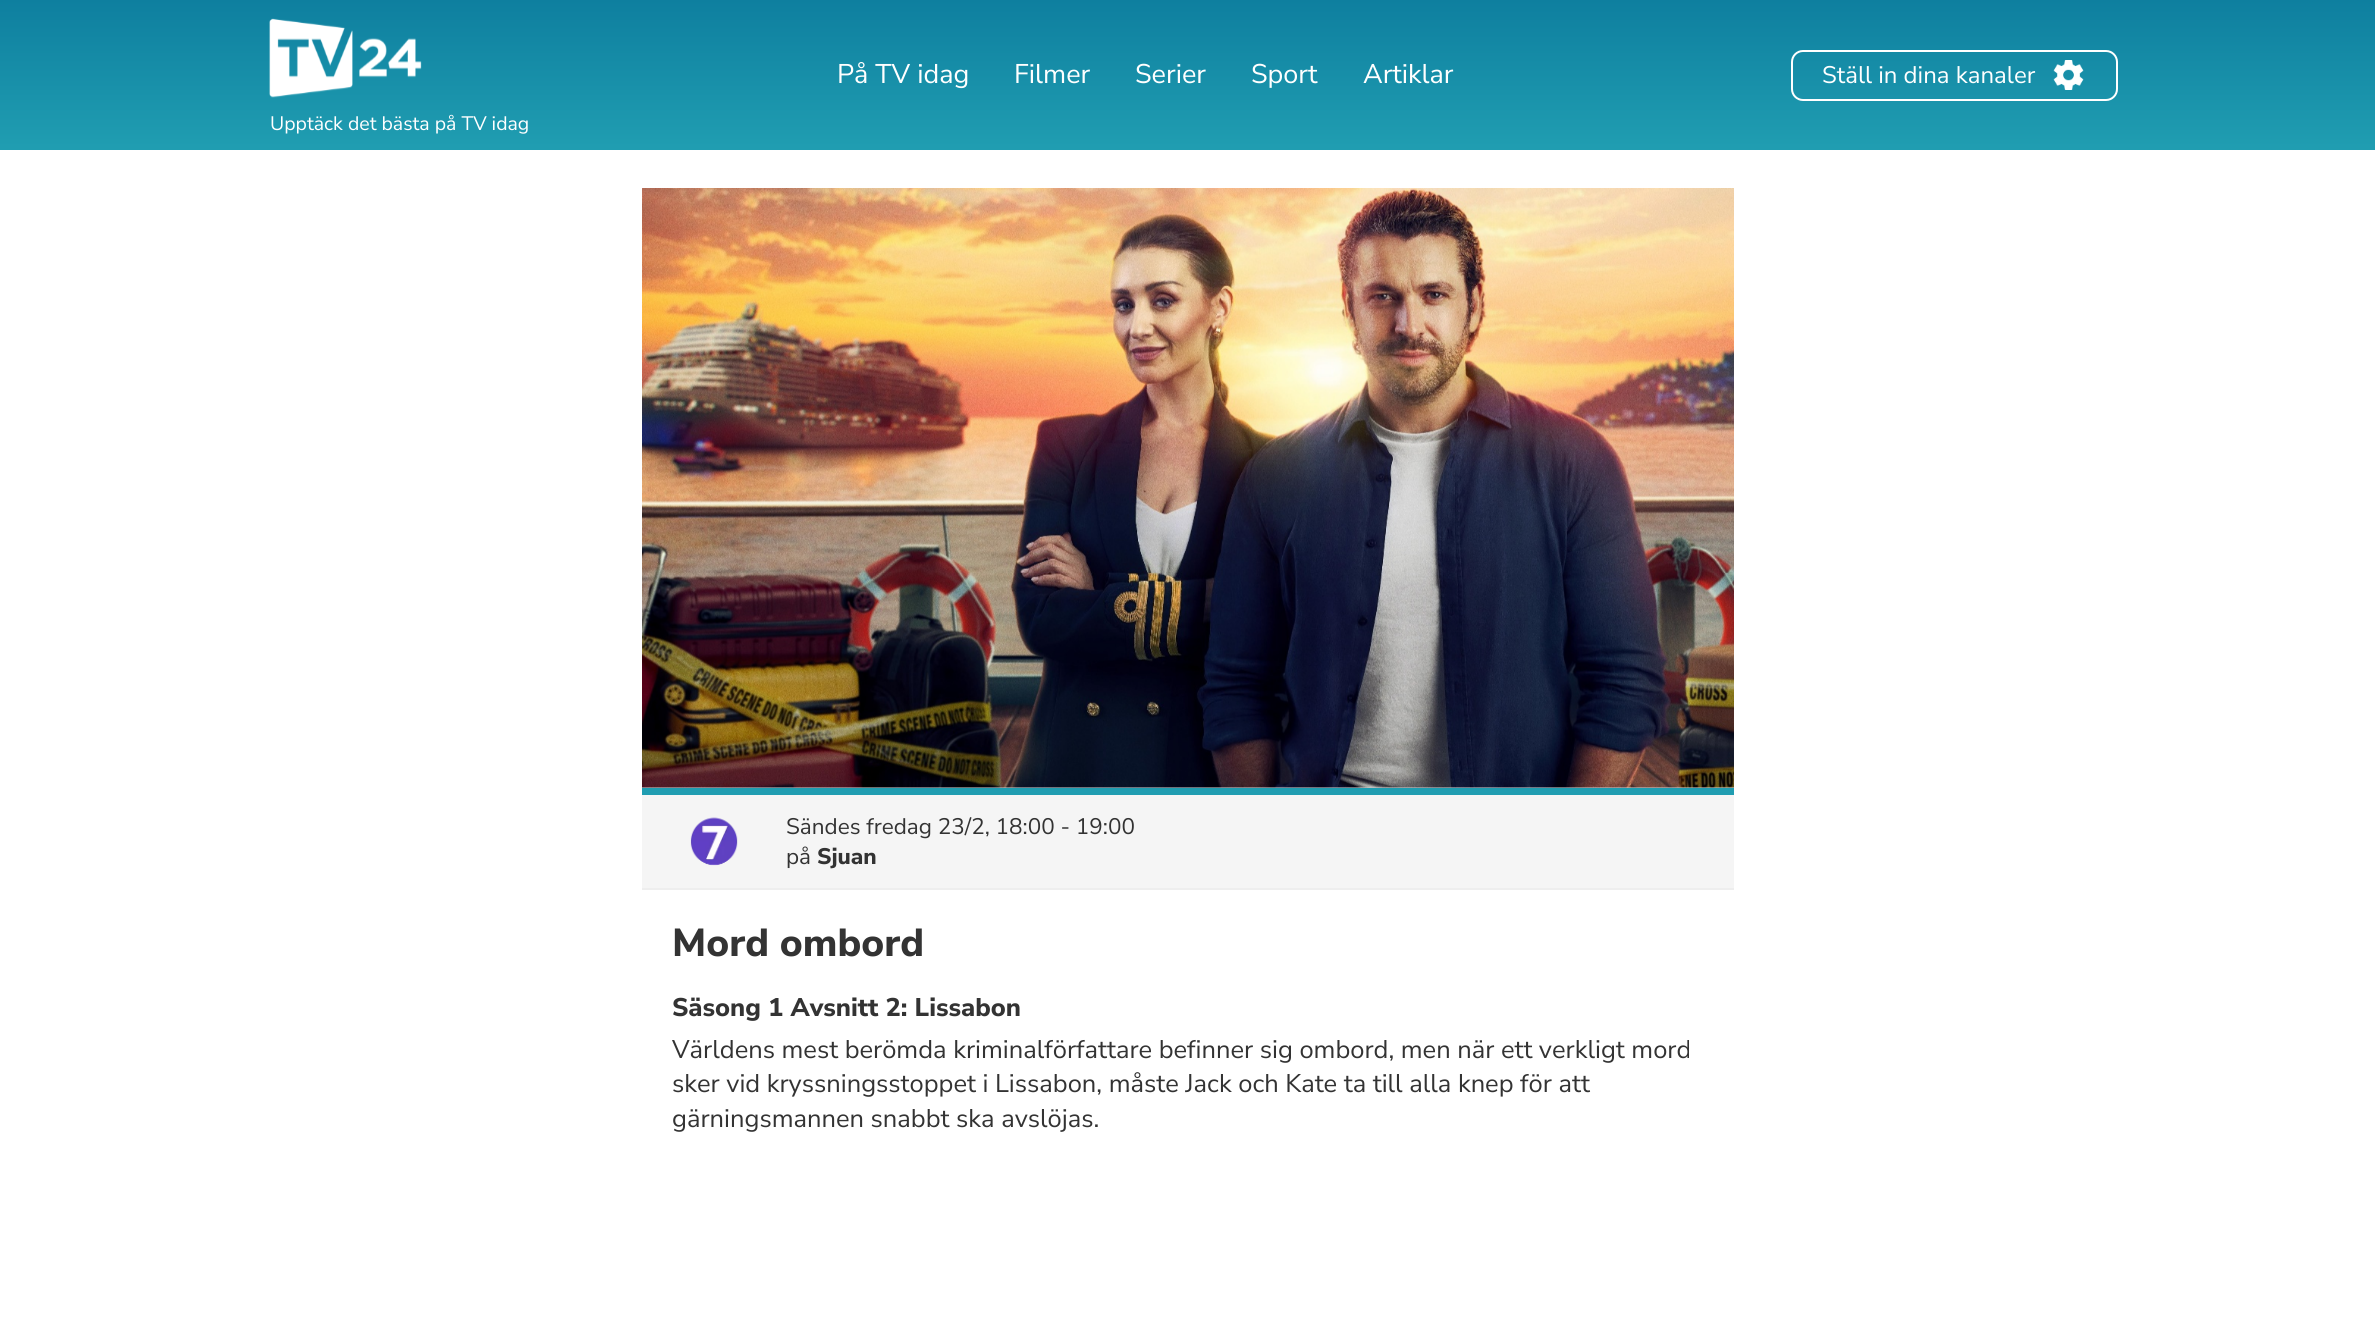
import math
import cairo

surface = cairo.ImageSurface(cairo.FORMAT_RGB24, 2375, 1320)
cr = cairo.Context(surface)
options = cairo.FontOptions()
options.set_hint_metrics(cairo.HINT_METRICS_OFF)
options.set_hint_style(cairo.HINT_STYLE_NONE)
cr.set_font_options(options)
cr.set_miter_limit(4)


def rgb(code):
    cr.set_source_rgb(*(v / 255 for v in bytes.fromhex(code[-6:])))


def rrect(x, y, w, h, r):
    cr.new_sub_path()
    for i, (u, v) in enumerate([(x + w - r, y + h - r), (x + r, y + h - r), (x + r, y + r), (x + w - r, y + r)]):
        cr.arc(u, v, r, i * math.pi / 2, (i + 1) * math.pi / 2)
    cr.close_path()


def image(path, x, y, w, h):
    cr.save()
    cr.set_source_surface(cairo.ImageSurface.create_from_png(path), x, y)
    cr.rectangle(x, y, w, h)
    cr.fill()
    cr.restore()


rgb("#ffffff")
cr.paint()
gradient = cairo.LinearGradient(1188, 150, 1188, 0)
gradient.add_color_stop_rgba(0.02, 0.125, 0.616, 0.694, 1)
gradient.add_color_stop_rgba(1, 0.055, 0.498, 0.624, 1)
cr.set_source(gradient)
cr.rectangle(0, 0, 2375, 150)
cr.fill()
rrect(1792, 51, 325, 49, 11)
rgb("#ffffff")
cr.stroke()
image("img/1.png", 2053, 60, 31, 30)
image("img/2.png", 269, 18, 153, 80)
rgb("#cccccc")
cr.rectangle(642, 787, 1092, 1)
cr.fill()
image("img/3.png", 642, 188, 1092, 600)
for x, y, w, h, color in [
    (642, 795, 1092, 93, "#f5f5f5"),
    (642, 788, 1092, 7, "#209db1"),
    (642, 888, 1092, 2, "#eeeeee"),
]:
    rgb(color)
    cr.rectangle(x, y, w, h)
    cr.fill()
image("img/4.png", 690, 817, 48, 49)
cr.select_font_face("Nunito Sans")
cr.set_font_size(27)
rgb("#ffffff")
for x, y, s in [
    (837, 83, "På TV idag"),
    (1014, 83, "Filmer"),
    (1135, 83, "Serier"),
    (1251, 83, "Sport"),
    (1363, 83, "Artiklar"),
]:
    cr.move_to(x, y)
    cr.show_text(s)
cr.set_font_size(24)
cr.move_to(1822, 83)
cr.show_text("Ställ in dina kanaler")
cr.set_font_size(19.5)
cr.move_to(270, 130)
cr.show_text("Upptäck det bästa på TV idag")
cr.set_font_size(22.5)
rgb("#333333")
cr.move_to(786, 834)
cr.show_text("Sändes fredag 23/2, 18:00 - 19:00")
cr.move_to(786, 864)
cr.show_text("på")
cr.select_font_face("Nunito Sans ExtraBold")
cr.move_to(817, 864)
cr.show_text("Sjuan")
cr.set_font_size(39)
cr.move_to(672, 956)
cr.show_text("Mord ombord")
cr.set_font_size(25.5)
cr.move_to(672, 1016)
cr.show_text("Säsong 1 Avsnitt 2: Lissabon")
cr.select_font_face("Nunito Sans")
for x, y, s in [
    (672, 1058, "Världens mest berömda kriminalförfattare befinner sig ombord, men när ett verkligt mord"),
    (672, 1092, "sker vid kryssningsstoppet i Lissabon, måste Jack och Kate ta till alla knep för att"),
    (672, 1127, "gärningsmannen snabbt ska avslöjas."),
]:
    cr.move_to(x, y)
    cr.show_text(s)
surface.write_to_png("page.png")
